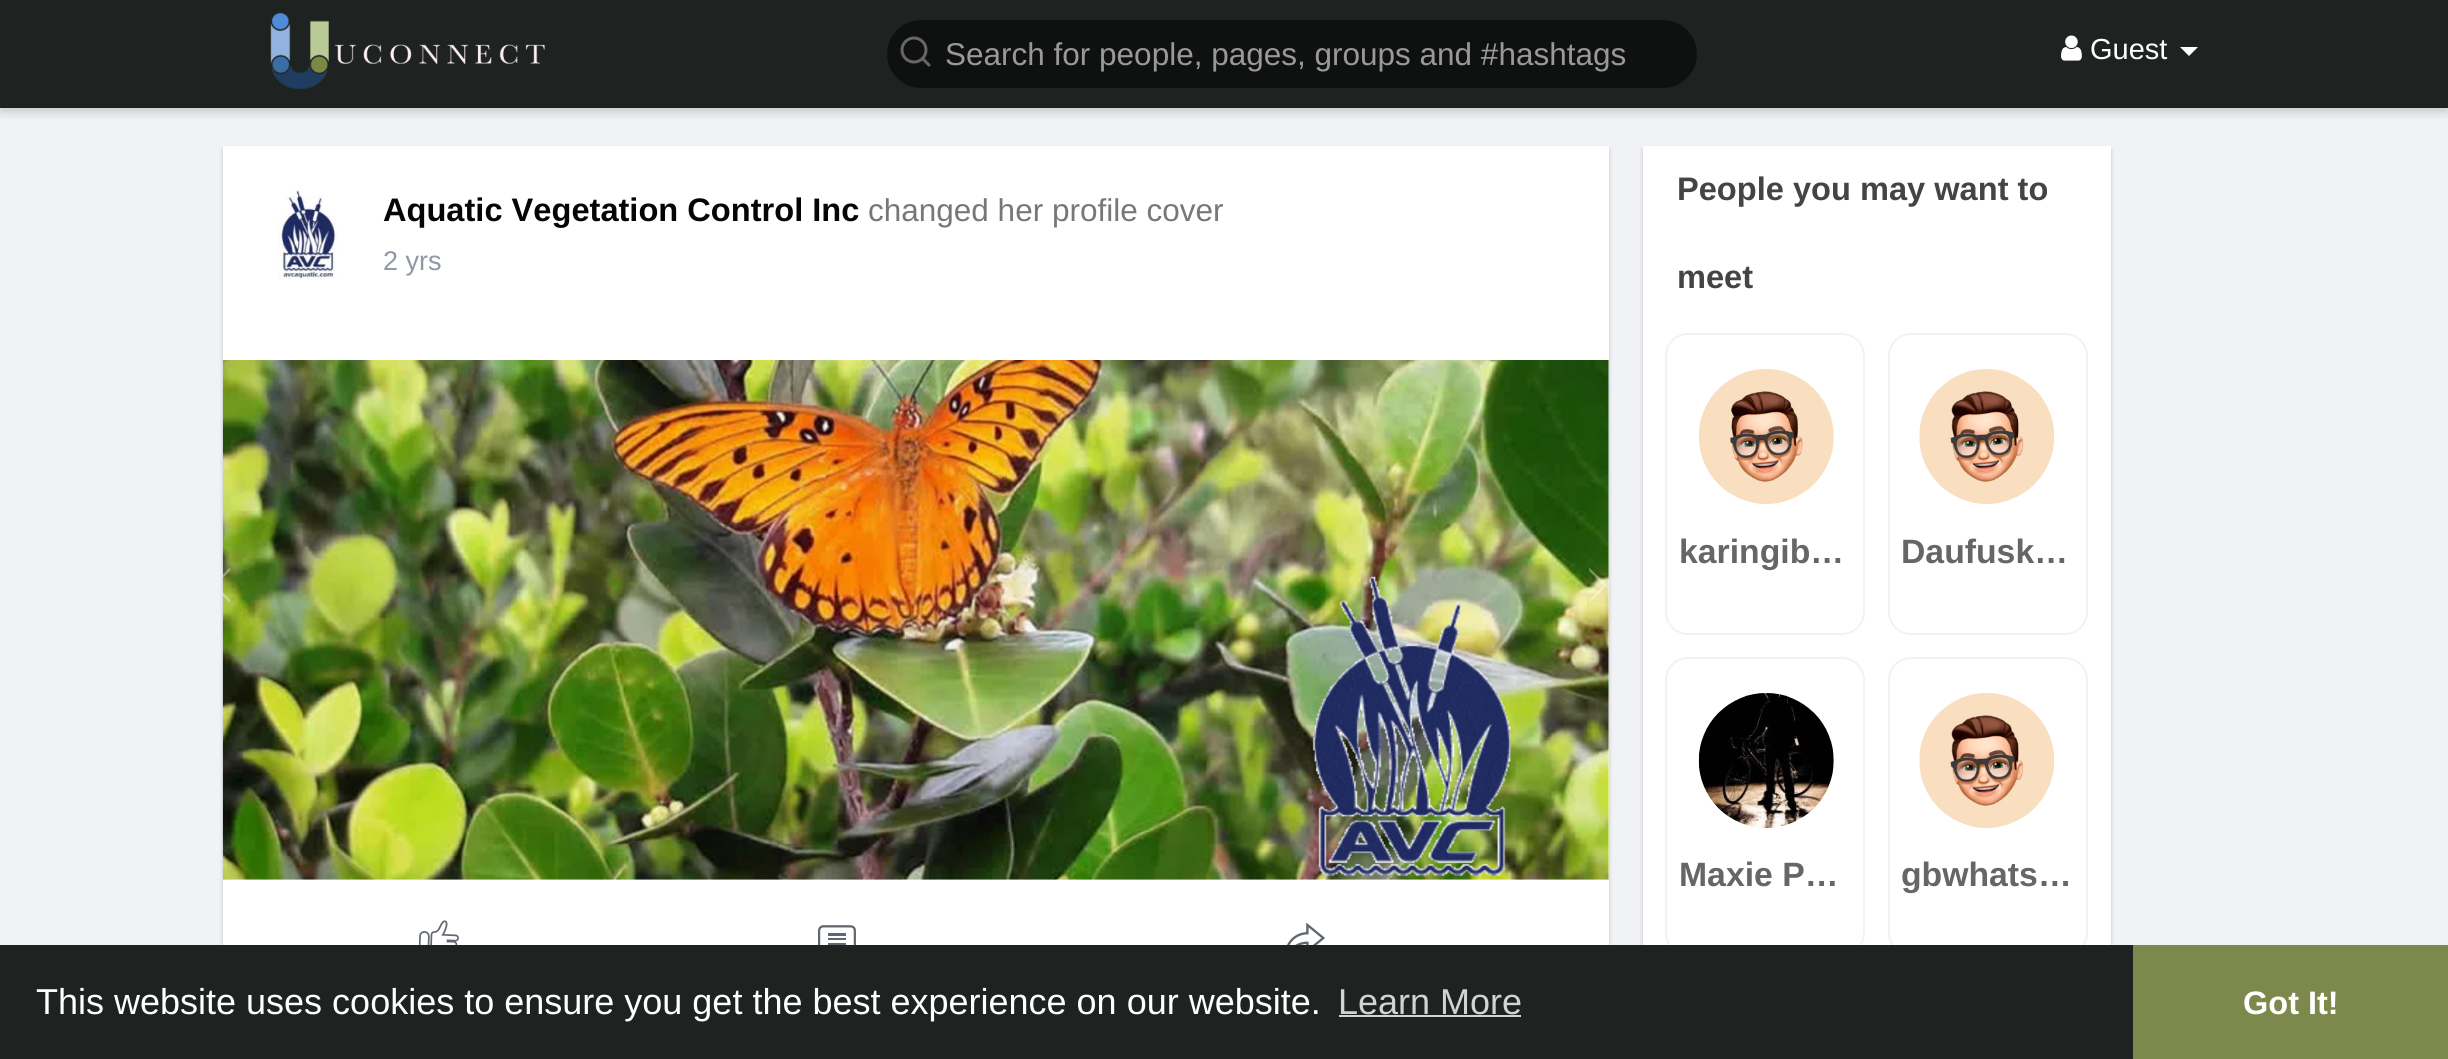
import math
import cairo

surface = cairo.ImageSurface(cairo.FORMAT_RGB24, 2448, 1059)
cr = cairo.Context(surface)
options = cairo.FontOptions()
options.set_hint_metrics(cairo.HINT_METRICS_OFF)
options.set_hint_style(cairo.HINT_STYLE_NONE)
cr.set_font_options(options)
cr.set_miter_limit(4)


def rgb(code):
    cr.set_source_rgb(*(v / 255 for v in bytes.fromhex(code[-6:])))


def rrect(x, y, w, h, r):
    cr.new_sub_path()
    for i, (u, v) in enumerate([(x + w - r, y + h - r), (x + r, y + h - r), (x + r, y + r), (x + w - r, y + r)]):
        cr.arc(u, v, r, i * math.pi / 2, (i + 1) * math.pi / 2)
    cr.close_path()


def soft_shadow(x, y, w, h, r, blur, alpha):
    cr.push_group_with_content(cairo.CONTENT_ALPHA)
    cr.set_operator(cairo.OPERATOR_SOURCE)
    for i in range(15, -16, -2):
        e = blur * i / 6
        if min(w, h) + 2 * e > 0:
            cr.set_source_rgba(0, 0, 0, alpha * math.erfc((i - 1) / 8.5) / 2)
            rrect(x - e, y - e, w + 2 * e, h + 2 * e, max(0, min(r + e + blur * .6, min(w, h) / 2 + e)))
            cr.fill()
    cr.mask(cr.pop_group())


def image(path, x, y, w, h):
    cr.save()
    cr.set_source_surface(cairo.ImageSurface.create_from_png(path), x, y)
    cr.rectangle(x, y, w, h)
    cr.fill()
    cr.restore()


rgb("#f0f2f5")
cr.paint()
rgb("#000000")
soft_shadow(0, 5, 2448, 108, 0, 4.5, 0.15)
rgb("#1e2321")
cr.rectangle(0, 0, 2448, 108)
cr.fill()
image("img/1.png", 270, 12, 275, 77)
rgb("#0f1110")
rrect(887, 20, 810, 68, 34)
cr.fill()
cr.arc(914, 50, 12, 0, 2 * math.pi)
rgb("#666666")
cr.set_line_width(3)
cr.stroke()
cr.new_path()
cr.move_to(929, 65)
cr.line_to(922.5, 58.5)
cr.set_line_cap(cairo.LINE_CAP_ROUND)
cr.set_line_join(cairo.LINE_JOIN_ROUND)
cr.stroke()
image("img/2.png", 2061, 35, 21, 26)
rgb("#ffffff")
cr.new_path()
cr.move_to(2180, 47)
cr.line_to(2198, 47)
cr.line_to(2189, 56)
cr.close_path()
cr.fill()
rgb("#000000")
soft_shadow(223, 149, 1386, 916, 0, 2, 0.2)
rgb("#ffffff")
cr.rectangle(223, 146, 1386, 799)
cr.fill()
image("img/3.png", 278, 185, 60, 95)
image("img/4.png", 222, 360, 1387, 520)
image("img/5.png", 419, 920, 40, 25)
image("img/6.png", 818, 925, 38, 20)
image("img/7.png", 1287, 923, 38, 22)
rgb("#000000")
soft_shadow(1643, 149, 468, 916, 0, 2, 0.2)
rgb("#ffffff")
cr.rectangle(1643, 146, 468, 799)
cr.fill()
rrect(1666, 334, 198, 300, 22)
rgb("#f0f2f5")
cr.set_line_width(2)
cr.set_line_cap(cairo.LINE_CAP_BUTT)
cr.set_line_join(cairo.LINE_JOIN_MITER)
cr.stroke()
image("img/8.png", 1698, 369, 136, 135)
rrect(1889, 334, 198, 300, 22)
cr.stroke()
image("img/9.png", 1919, 369, 135, 135)
rrect(1666, 658, 198, 297, 22)
cr.stroke()
image("img/10.png", 1698, 693, 136, 135)
rrect(1889, 658, 198, 297, 22)
cr.stroke()
image("img/11.png", 1919, 693, 136, 135)
for x, y, w, h, color in [
    (0, 945, 2133, 114, "#1e2321"),
    (1339, 1015, 182, 2, "#d2d3d3"),
    (2133, 945, 315, 114, "#7c884c"),
]:
    rgb(color)
    cr.rectangle(x, y, w, h)
    cr.fill()
cr.select_font_face("Liberation Sans")
cr.set_font_size(31.5)
rgb("#999999")
cr.move_to(945, 65)
cr.show_text("Search for people, pages, groups and #hashtags")
cr.set_font_size(29)
rgb("#ffffff")
cr.move_to(2090, 59)
cr.show_text("Guest")
cr.select_font_face("Liberation Sans", cairo.FONT_SLANT_NORMAL, cairo.FONT_WEIGHT_BOLD)
cr.set_font_size(32.6)
rgb("#050505")
cr.move_to(383, 221)
cr.show_text("Aquatic Vegetation Control Inc")
cr.select_font_face("Liberation Sans")
cr.set_font_size(31.5)
rgb("#777777")
cr.move_to(868, 221)
cr.show_text("changed her profile cover")
cr.set_font_size(27)
rgb("#9197a3")
cr.move_to(383, 270)
cr.show_text("2 yrs")
cr.select_font_face("Liberation Sans", cairo.FONT_SLANT_NORMAL, cairo.FONT_WEIGHT_BOLD)
cr.set_font_size(32.6)
rgb("#444444")
cr.move_to(1677, 200)
cr.show_text("People you may want to")
cr.move_to(1677, 288)
cr.show_text("meet")
cr.set_font_size(33.75)
rgb("#666666")
for x, y, s in [
    (1679, 563, "karingib…"),
    (1901, 563, "Daufusk…"),
    (1679, 886, "Maxie P…"),
    (1901, 886, "gbwhats…"),
]:
    cr.move_to(x, y)
    cr.show_text(s)
cr.select_font_face("Liberation Sans")
cr.set_font_size(36)
rgb("#ffffff")
cr.move_to(36, 1014)
cr.show_text("This website uses cookies to ensure you get the best experience on our website.")
rgb("#d2d3d3")
cr.move_to(1338, 1014)
cr.show_text("Learn More")
cr.select_font_face("Liberation Sans", cairo.FONT_SLANT_NORMAL, cairo.FONT_WEIGHT_BOLD)
cr.set_font_size(32.5)
rgb("#ffffff")
cr.move_to(2243, 1014)
cr.show_text("Got It!")
surface.write_to_png("page.png")
